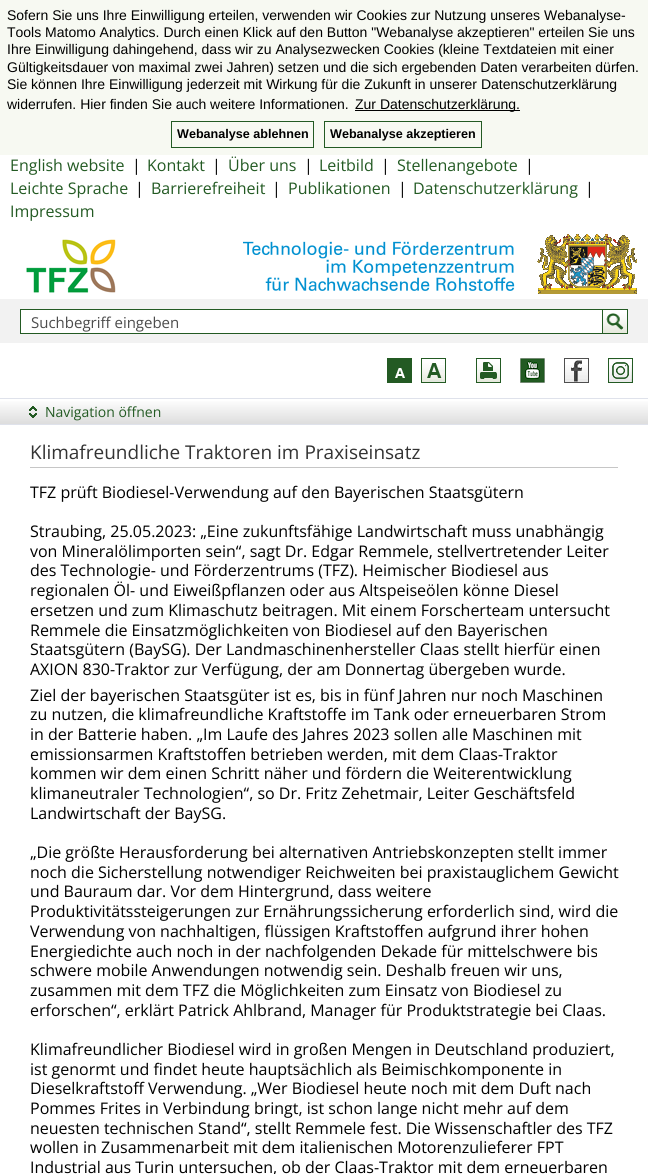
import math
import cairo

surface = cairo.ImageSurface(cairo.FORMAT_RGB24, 648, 1174)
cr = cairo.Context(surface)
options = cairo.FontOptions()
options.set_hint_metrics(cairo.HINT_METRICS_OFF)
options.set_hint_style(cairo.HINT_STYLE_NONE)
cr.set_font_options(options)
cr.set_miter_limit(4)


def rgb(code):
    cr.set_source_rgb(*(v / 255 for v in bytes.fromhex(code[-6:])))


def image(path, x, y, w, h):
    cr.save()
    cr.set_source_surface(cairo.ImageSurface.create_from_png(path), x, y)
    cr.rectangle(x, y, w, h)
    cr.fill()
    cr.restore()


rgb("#ffffff")
cr.paint()
rgb("#f7f9f2")
cr.rectangle(0, 0, 648, 155)
cr.fill()
rgb("#000000")
cr.rectangle(355, 110, 165, 1)
cr.fill()
cr.rectangle(171.5, 121.5, 142, 26)
rgb("#235a23")
cr.set_line_width(1)
cr.stroke()
cr.rectangle(324.5, 121.5, 157, 26)
cr.stroke()
image("img/1.png", 26, 239, 90, 54)
image("img/2.png", 243, 241, 272, 50)
image("img/3.png", 537, 234, 100, 60)
rgb("#f2f2f2")
cr.rectangle(0, 299, 648, 44)
cr.fill()
rgb("#ffffff")
cr.rectangle(21, 310, 581, 23)
cr.fill()
cr.rectangle(20.5, 309.5, 607, 24)
rgb("#235a23")
cr.stroke()
rgb("#ffffff")
cr.rectangle(603, 310, 24, 3)
cr.fill()
rgb("#235a23")
cr.rectangle(602, 309, 1, 25)
cr.fill()
image("img/4.png", 603, 313, 24, 20)
image("img/5.png", 387, 358, 25, 25)
image("img/6.png", 388, 359, 23, 23)
image("img/7.png", 421, 358, 25, 25)
image("img/8.png", 429, 364, 16, 18)
image("img/9.png", 476, 358, 25, 25)
rgb("#f1f6f1")
cr.rectangle(477, 370, 6, 1)
cr.fill()
image("img/10.png", 520, 358, 25, 25)
image("img/11.png", 564, 358, 25, 25)
image("img/12.png", 608, 358, 25, 25)
gradient = cairo.LinearGradient(0, 399, 0, 424)
gradient.add_color_stop_rgba(0, 1, 1, 1, 1)
gradient.add_color_stop_rgba(1, 0.867, 0.867, 0.867, 1)
cr.set_source(gradient)
cr.rectangle(0, 401, 648, 23)
cr.fill()
rgb("#dfe2eb")
cr.rectangle(0, 398, 648, 1)
cr.fill()
cr.rectangle(0, 424, 648, 1)
cr.fill()
image("img/13.png", 29, 406, 8, 12)
rgb("#c6c6c6")
cr.rectangle(30, 467, 588, 1)
cr.fill()
cr.select_font_face("Liberation Sans")
cr.set_font_size(14)
rgb("#000000")
for x, y, s in [
    (7, 20, "Sofern Sie uns Ihre Einwilligung erteilen, verwenden wir Cookies zur Nutzung unseres Webanalyse-"),
    (7, 37, "Tools Matomo Analytics. Durch einen Klick auf den Button \"Webanalyse akzeptieren\" erteilen Sie uns"),
    (7, 54, "Ihre Einwilligung dahingehend, dass wir zu Analysezwecken Cookies (kleine Textdateien mit einer"),
    (7, 72, "Gültigkeitsdauer von maximal zwei Jahren) setzen und die sich ergebenden Daten verarbeiten dürfen."),
    (7, 89, "Sie können Ihre Einwilligung jederzeit mit Wirkung für die Zukunft in unserer Datenschutzerklärung"),
    (7, 109, "widerrufen. Hier finden Sie auch weitere Informationen."),
    (355, 109, "Zur Datenschutzerklärung."),
]:
    cr.move_to(x, y)
    cr.show_text(s)
cr.select_font_face("Liberation Sans", cairo.FONT_SLANT_NORMAL, cairo.FONT_WEIGHT_BOLD)
cr.set_font_size(12.6)
cr.move_to(177, 138)
cr.show_text("Webanalyse ablehnen")
cr.move_to(330, 138)
cr.show_text("Webanalyse akzeptieren")
cr.select_font_face("Open Sans")
cr.set_font_size(16)
rgb("#235a23")
cr.move_to(10, 171)
cr.show_text("English website")
rgb("#000000")
cr.move_to(132, 171)
cr.show_text("|")
rgb("#235a23")
cr.move_to(147, 171)
cr.show_text("Kontakt")
rgb("#000000")
cr.move_to(212, 171)
cr.show_text("|")
rgb("#235a23")
cr.move_to(228, 171)
cr.show_text("Über uns")
rgb("#000000")
cr.move_to(304, 171)
cr.show_text("|")
rgb("#235a23")
cr.move_to(319, 171)
cr.show_text("Leitbild")
rgb("#000000")
cr.move_to(381, 171)
cr.show_text("|")
rgb("#235a23")
cr.move_to(397, 171)
cr.show_text("Stellenangebote")
rgb("#000000")
cr.move_to(525, 171)
cr.show_text("|")
rgb("#235a23")
cr.move_to(10, 194)
cr.show_text("Leichte Sprache")
rgb("#000000")
cr.move_to(135, 194)
cr.show_text("|")
rgb("#235a23")
cr.move_to(151, 194)
cr.show_text("Barrierefreiheit")
rgb("#000000")
cr.move_to(272, 194)
cr.show_text("|")
rgb("#235a23")
cr.move_to(288, 194)
cr.show_text("Publikationen")
rgb("#000000")
cr.move_to(398, 194)
cr.show_text("|")
rgb("#235a23")
cr.move_to(413, 194)
cr.show_text("Datenschutzerklärung")
rgb("#000000")
cr.move_to(585, 194)
cr.show_text("|")
rgb("#235a23")
cr.move_to(10, 217)
cr.show_text("Impressum")
cr.set_font_size(15)
rgb("#4c4c4c")
cr.move_to(31, 328)
cr.show_text("Suchbegriff eingeben")
cr.set_font_size(14)
rgb("#235a23")
cr.move_to(45, 417)
cr.show_text("Navigation öffnen")
cr.set_font_size(19)
rgb("#333333")
cr.move_to(30, 459)
cr.show_text("Klimafreundliche Traktoren im Praxiseinsatz")
cr.set_font_size(16)
rgb("#000000")
for x, y, s in [
    (30, 498, "TFZ prüft Biodiesel-Verwendung auf den Bayerischen Staatsgütern"),
    (30, 537, "Straubing, 25.05.2023: „Eine zukunftsfähige Landwirtschaft muss unabhängig"),
    (30, 557, "von Mineralölimporten sein“, sagt Dr. Edgar Remmele, stellvertretender Leiter"),
    (30, 576, "des Technologie- und Förderzentrums (TFZ). Heimischer Biodiesel aus"),
    (30, 596, "regionalen Öl- und Eiweißpflanzen oder aus Altspeiseölen könne Diesel"),
    (30, 616, "ersetzen und zum Klimaschutz beitragen. Mit einem Forscherteam untersucht"),
    (30, 636, "Remmele die Einsatzmöglichkeiten von Biodiesel auf den Bayerischen"),
    (30, 655, "Staatsgütern (BaySG). Der Landmaschinenhersteller Claas stellt hierfür einen"),
    (30, 675, "AXION 830-Traktor zur Verfügung, der am Donnertag übergeben wurde."),
    (30, 701, "Ziel der bayerischen Staatsgüter ist es, bis in fünf Jahren nur noch Maschinen"),
    (30, 720, "zu nutzen, die klimafreundliche Kraftstoffe im Tank oder erneuerbaren Strom"),
    (30, 740, "in der Batterie haben. „Im Laufe des Jahres 2023 sollen alle Maschinen mit"),
    (30, 760, "emissionsarmen Kraftstoffen betrieben werden, mit dem Claas-Traktor"),
    (30, 779, "kommen wir dem einen Schritt näher und fördern die Weiterentwicklung"),
    (30, 799, "klimaneutraler Technologien“, so Dr. Fritz Zehetmair, Leiter Geschäftsfeld"),
    (30, 819, "Landwirtschaft der BaySG."),
    (30, 858, "„Die größte Herausforderung bei alternativen Antriebskonzepten stellt immer"),
    (30, 878, "noch die Sicherstellung notwendiger Reichweiten bei praxistauglichem Gewicht"),
    (30, 897, "und Bauraum dar. Vor dem Hintergrund, dass weitere"),
    (30, 917, "Produktivitätssteigerungen zur Ernährungssicherung erforderlich sind, wird die"),
    (30, 937, "Verwendung von nachhaltigen, flüssigen Kraftstoffen aufgrund ihrer hohen"),
    (30, 957, "Energiedichte auch noch in der nachfolgenden Dekade für mittelschwere bis"),
    (30, 976, "schwere mobile Anwendungen notwendig sein. Deshalb freuen wir uns,"),
    (30, 996, "zusammen mit dem TFZ die Möglichkeiten zum Einsatz von Biodiesel zu"),
    (30, 1016, "erforschen“, erklärt Patrick Ahlbrand, Manager für Produktstrategie bei Claas."),
    (30, 1055, "Klimafreundlicher Biodiesel wird in großen Mengen in Deutschland produziert,"),
    (30, 1075, "ist genormt und findet heute hauptsächlich als Beimischkomponente in"),
    (30, 1094, "Dieselkraftstoff Verwendung. „Wer Biodiesel heute noch mit dem Duft nach"),
    (30, 1114, "Pommes Frites in Verbindung bringt, ist schon lange nicht mehr auf dem"),
    (30, 1134, "neuesten technischen Stand“, stellt Remmele fest. Die Wissenschaftler des TFZ"),
    (30, 1153, "wollen in Zusammenarbeit mit dem italienischen Motorenzulieferer FPT"),
    (30, 1173, "Industrial aus Turin untersuchen, ob der Claas-Traktor mit dem erneuerbaren"),
]:
    cr.move_to(x, y)
    cr.show_text(s)
surface.write_to_png("page.png")
